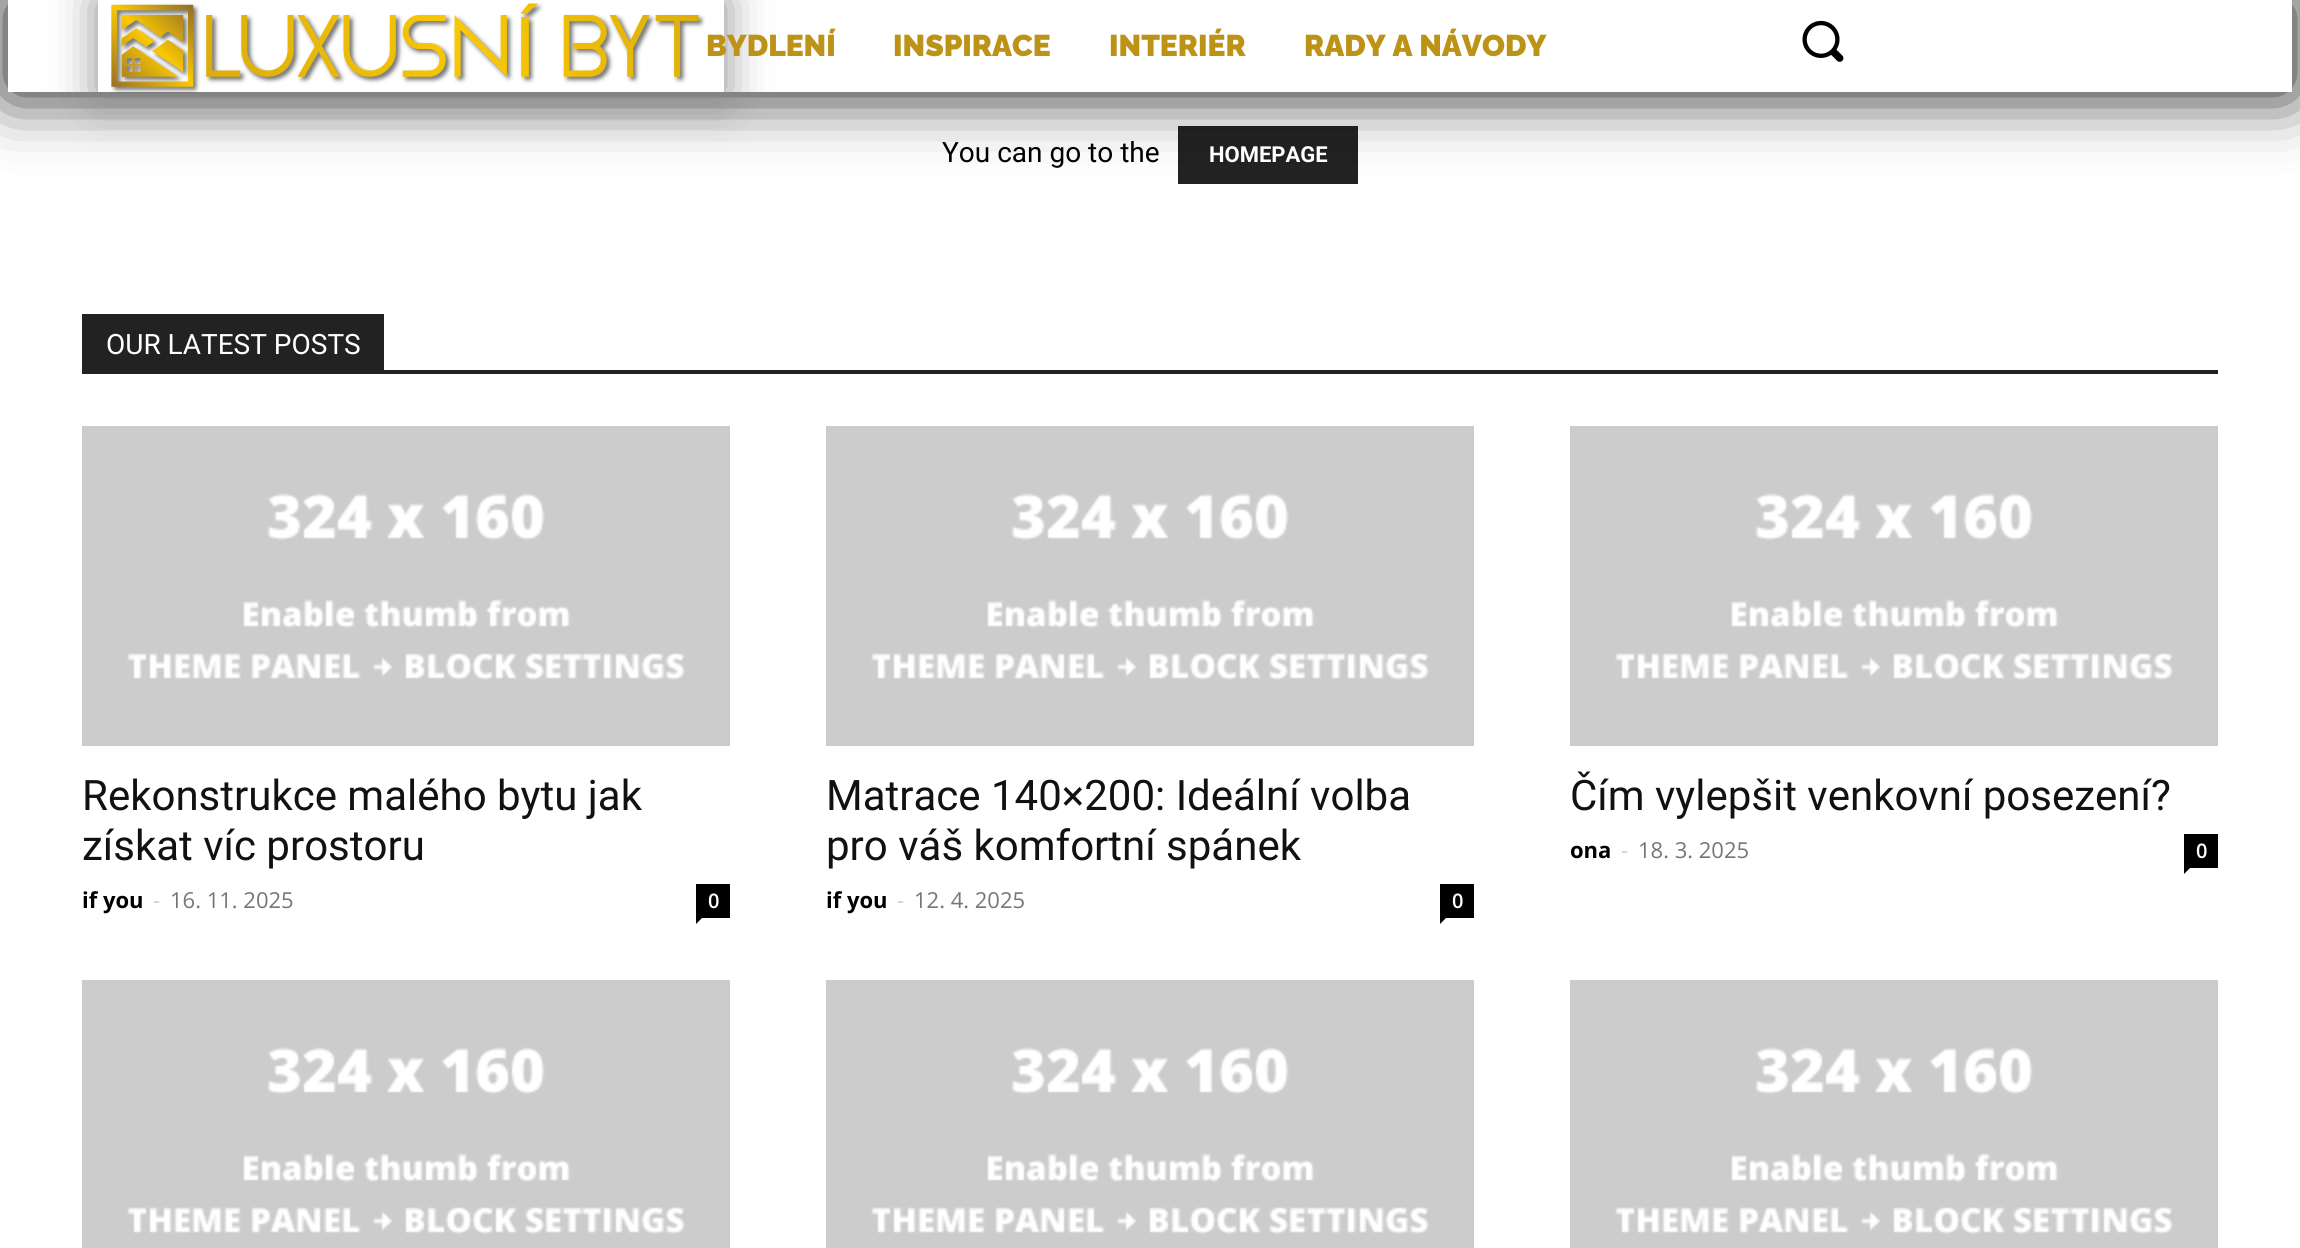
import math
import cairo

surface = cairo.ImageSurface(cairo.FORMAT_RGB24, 2300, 1248)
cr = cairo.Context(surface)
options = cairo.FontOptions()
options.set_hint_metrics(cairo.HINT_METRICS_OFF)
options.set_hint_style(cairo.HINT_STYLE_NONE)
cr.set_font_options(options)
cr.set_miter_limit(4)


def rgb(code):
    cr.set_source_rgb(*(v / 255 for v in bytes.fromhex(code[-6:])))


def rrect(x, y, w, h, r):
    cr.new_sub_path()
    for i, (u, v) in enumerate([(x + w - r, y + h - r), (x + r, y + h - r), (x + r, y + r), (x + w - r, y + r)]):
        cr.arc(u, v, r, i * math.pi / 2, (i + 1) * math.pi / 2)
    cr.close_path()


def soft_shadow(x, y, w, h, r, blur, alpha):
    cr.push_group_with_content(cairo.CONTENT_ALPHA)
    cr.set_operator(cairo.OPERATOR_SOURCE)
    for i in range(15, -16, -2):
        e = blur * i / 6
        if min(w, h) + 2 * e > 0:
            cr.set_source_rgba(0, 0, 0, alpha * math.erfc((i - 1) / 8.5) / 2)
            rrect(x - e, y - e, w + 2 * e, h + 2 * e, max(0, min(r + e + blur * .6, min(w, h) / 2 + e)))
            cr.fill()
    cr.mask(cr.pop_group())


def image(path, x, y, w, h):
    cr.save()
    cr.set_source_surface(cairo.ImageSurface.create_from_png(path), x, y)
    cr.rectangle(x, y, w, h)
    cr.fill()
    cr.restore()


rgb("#ffffff")
cr.paint()
rgb("#222222")
cr.rectangle(1178, 126, 180, 58)
cr.fill()
cr.save()
cr.set_fill_rule(cairo.FILL_RULE_EVEN_ODD)
cr.new_path()
cr.move_to(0, 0)
cr.line_to(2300, 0)
cr.line_to(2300, 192)
cr.line_to(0, 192)
cr.close_path()
cr.move_to(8, 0)
cr.line_to(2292, 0)
cr.line_to(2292, 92)
cr.line_to(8, 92)
cr.close_path()
cr.clip()
rgb("#0a0909")
soft_shadow(8, 0, 2284, 92, 0, 33, 1)
cr.restore()
cr.save()
cr.set_fill_rule(cairo.FILL_RULE_EVEN_ODD)
cr.new_path()
cr.move_to(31, 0)
cr.line_to(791, 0)
cr.line_to(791, 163)
cr.line_to(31, 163)
cr.close_path()
cr.move_to(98, 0)
cr.line_to(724, 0)
cr.line_to(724, 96)
cr.line_to(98, 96)
cr.close_path()
cr.clip()
rgb("#888888")
soft_shadow(98, 0, 626, 96, 0, 22, 1)
cr.restore()
image("img/1.png", 111, 3, 594, 90)
image("img/2.png", 1802, 20, 42, 42)
cr.rectangle(82, 370, 2136, 4)
cr.fill()
cr.rectangle(82, 314, 302, 56)
cr.fill()
image("img/3.png", 82, 426, 648, 320)
rgb("#000000")
cr.rectangle(696, 884, 34, 34)
cr.fill()
cr.new_path()
cr.move_to(696, 918)
cr.line_to(702, 918)
cr.line_to(696, 924)
cr.close_path()
cr.fill()
image("img/3.png", 826, 426, 648, 320)
cr.rectangle(1440, 884, 34, 34)
cr.fill()
cr.new_path()
cr.move_to(1440, 918)
cr.line_to(1446, 918)
cr.line_to(1440, 924)
cr.close_path()
cr.fill()
image("img/3.png", 1570, 426, 648, 320)
cr.rectangle(2184, 834, 34, 34)
cr.fill()
cr.new_path()
cr.move_to(2184, 868)
cr.line_to(2190, 868)
cr.line_to(2184, 874)
cr.close_path()
cr.fill()
image("img/4.png", 82, 980, 648, 268)
image("img/4.png", 826, 980, 648, 268)
image("img/4.png", 1570, 980, 648, 268)
cr.select_font_face("Raleway Black")
cr.set_font_size(30)
rgb("#bc9217")
for x, y, s in [
    (706, 56, "BYDLENÍ"),
    (893, 56, "INSPIRACE"),
    (1109, 56, "INTERIÉR"),
    (1304, 56, "RADY A NÁVODY"),
]:
    cr.move_to(x, y)
    cr.show_text(s)
cr.select_font_face("Roboto")
cr.set_font_size(28)
rgb("#000000")
cr.move_to(942, 162)
cr.show_text("You can go to the")
cr.select_font_face("Roboto", cairo.FONT_SLANT_NORMAL, cairo.FONT_WEIGHT_BOLD)
cr.set_font_size(22)
rgb("#ffffff")
cr.move_to(1209, 162)
cr.show_text("HOMEPAGE")
cr.select_font_face("Roboto")
cr.set_font_size(28)
cr.move_to(106, 354)
cr.show_text("OUR LATEST POSTS")
cr.set_font_size(42)
rgb("#111111")
cr.move_to(82, 810)
cr.show_text("Rekonstrukce malého bytu jak")
cr.move_to(82, 860)
cr.show_text("získat víc prostoru")
cr.select_font_face("Open Sans", cairo.FONT_SLANT_NORMAL, cairo.FONT_WEIGHT_BOLD)
cr.set_font_size(22)
rgb("#000000")
cr.move_to(82, 908)
cr.show_text("if you")
cr.select_font_face("Open Sans")
rgb("#cccccc")
cr.move_to(153, 908)
cr.show_text("-")
rgb("#767676")
cr.move_to(170, 908)
cr.show_text("16. 11. 2025")
cr.select_font_face("Open Sans SemiBold")
cr.set_font_size(20)
rgb("#ffffff")
cr.move_to(708, 908)
cr.show_text("0")
cr.select_font_face("Roboto")
cr.set_font_size(42)
rgb("#111111")
cr.move_to(826, 810)
cr.show_text("Matrace 140×200: Ideální volba")
cr.move_to(826, 860)
cr.show_text("pro váš komfortní spánek")
cr.select_font_face("Open Sans", cairo.FONT_SLANT_NORMAL, cairo.FONT_WEIGHT_BOLD)
cr.set_font_size(22)
rgb("#000000")
cr.move_to(826, 908)
cr.show_text("if you")
cr.select_font_face("Open Sans")
rgb("#cccccc")
cr.move_to(897, 908)
cr.show_text("-")
rgb("#767676")
cr.move_to(914, 908)
cr.show_text("12. 4. 2025")
cr.select_font_face("Open Sans SemiBold")
cr.set_font_size(20)
rgb("#ffffff")
cr.move_to(1452, 908)
cr.show_text("0")
cr.select_font_face("Roboto")
cr.set_font_size(42)
rgb("#111111")
cr.move_to(1570, 810)
cr.show_text("Čím vylepšit venkovní posezení?")
cr.select_font_face("Open Sans", cairo.FONT_SLANT_NORMAL, cairo.FONT_WEIGHT_BOLD)
cr.set_font_size(22)
rgb("#000000")
cr.move_to(1570, 858)
cr.show_text("ona")
cr.select_font_face("Open Sans")
rgb("#cccccc")
cr.move_to(1621, 858)
cr.show_text("-")
rgb("#767676")
cr.move_to(1638, 858)
cr.show_text("18. 3. 2025")
cr.select_font_face("Open Sans SemiBold")
cr.set_font_size(20)
rgb("#ffffff")
cr.move_to(2196, 858)
cr.show_text("0")
surface.write_to_png("page.png")
